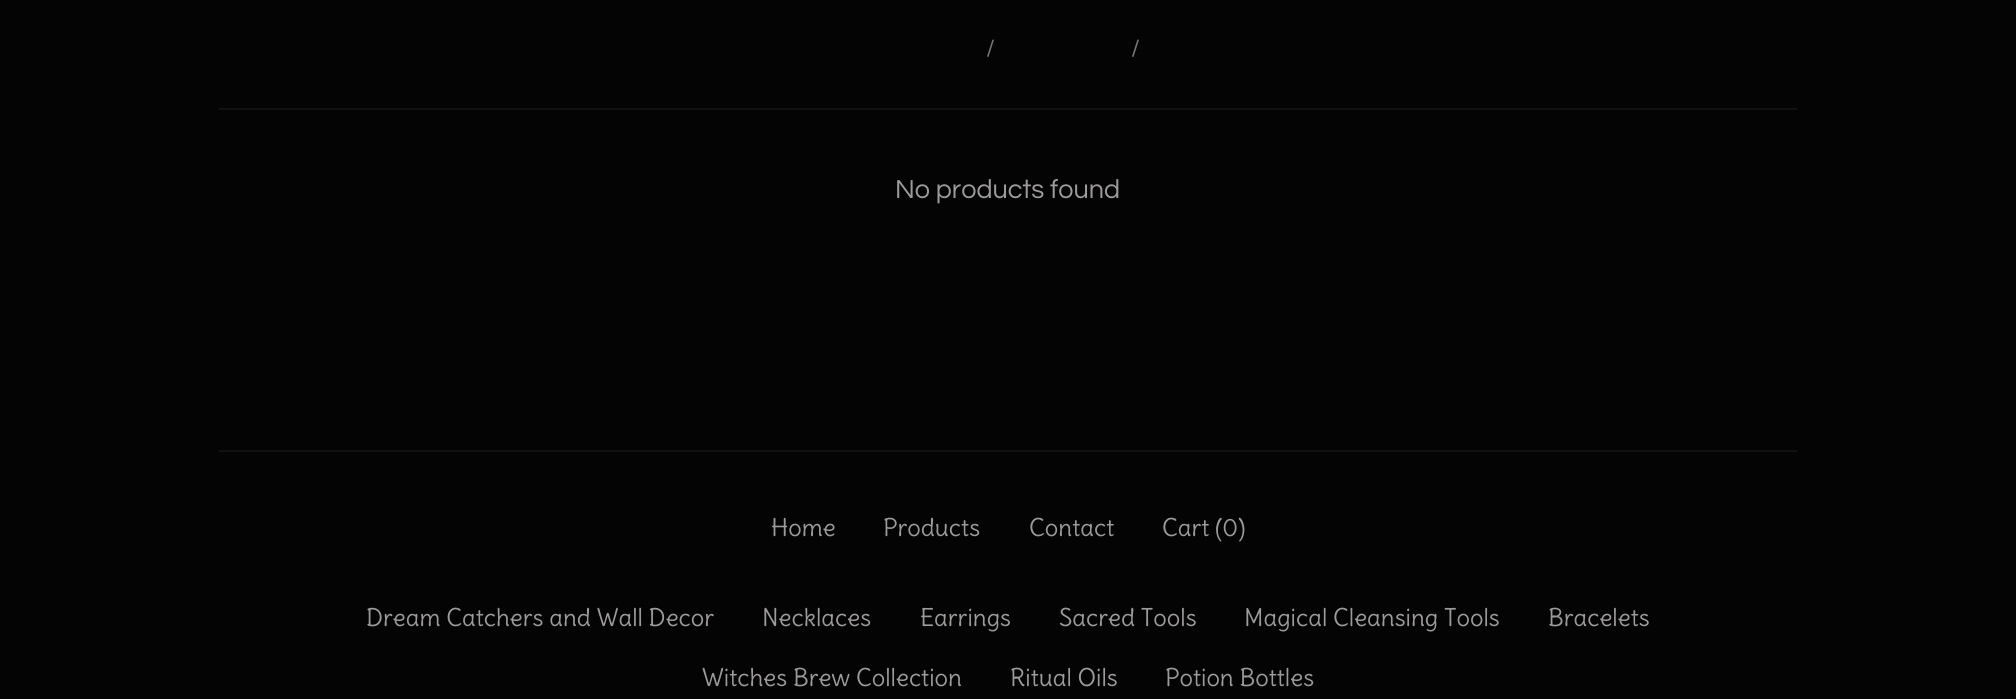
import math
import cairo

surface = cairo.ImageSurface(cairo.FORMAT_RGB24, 2016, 699)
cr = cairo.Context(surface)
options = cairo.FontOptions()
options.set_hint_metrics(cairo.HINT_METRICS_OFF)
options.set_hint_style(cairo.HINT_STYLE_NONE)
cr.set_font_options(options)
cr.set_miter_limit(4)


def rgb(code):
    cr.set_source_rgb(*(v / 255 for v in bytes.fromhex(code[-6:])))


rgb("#040404")
cr.paint()
rgb("#111111")
cr.rectangle(219, 108, 1578, 2)
cr.fill()
cr.rectangle(219, 450, 1578, 2)
cr.fill()
cr.select_font_face("Questrial")
cr.set_font_size(24)
rgb("#747474")
cr.move_to(986, 56)
cr.show_text("/")
cr.move_to(1131, 56)
cr.show_text("/")
cr.set_font_size(27)
rgb("#9d9a9a")
cr.move_to(895, 198)
cr.show_text("No products found")
cr.select_font_face("Delius")
cr.set_font_size(24)
for x, y, s in [
    (771, 536, "Home"),
    (883, 536, "Products"),
    (1029, 536, "Contact"),
    (1162, 536, "Cart (0)"),
    (366, 626, "Dream Catchers and Wall Decor"),
    (762, 626, "Necklaces"),
    (920, 626, "Earrings"),
    (1059, 626, "Sacred Tools"),
    (1244, 626, "Magical Cleansing Tools"),
    (1548, 626, "Bracelets"),
    (702, 686, "Witches Brew Collection"),
    (1010, 686, "Ritual Oils"),
    (1165, 686, "Potion Bottles"),
]:
    cr.move_to(x, y)
    cr.show_text(s)
surface.write_to_png("page.png")
